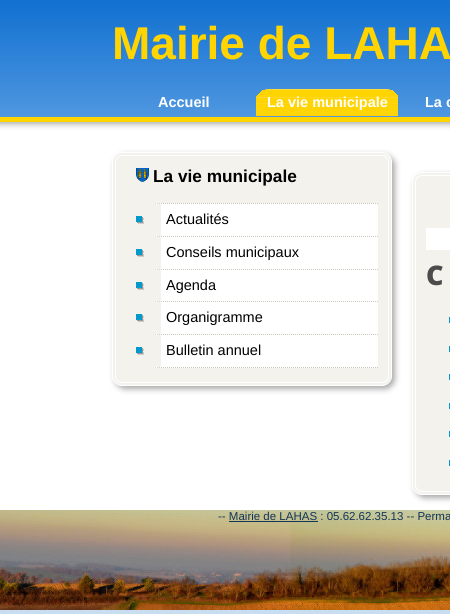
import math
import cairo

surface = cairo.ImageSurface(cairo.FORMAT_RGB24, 450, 614)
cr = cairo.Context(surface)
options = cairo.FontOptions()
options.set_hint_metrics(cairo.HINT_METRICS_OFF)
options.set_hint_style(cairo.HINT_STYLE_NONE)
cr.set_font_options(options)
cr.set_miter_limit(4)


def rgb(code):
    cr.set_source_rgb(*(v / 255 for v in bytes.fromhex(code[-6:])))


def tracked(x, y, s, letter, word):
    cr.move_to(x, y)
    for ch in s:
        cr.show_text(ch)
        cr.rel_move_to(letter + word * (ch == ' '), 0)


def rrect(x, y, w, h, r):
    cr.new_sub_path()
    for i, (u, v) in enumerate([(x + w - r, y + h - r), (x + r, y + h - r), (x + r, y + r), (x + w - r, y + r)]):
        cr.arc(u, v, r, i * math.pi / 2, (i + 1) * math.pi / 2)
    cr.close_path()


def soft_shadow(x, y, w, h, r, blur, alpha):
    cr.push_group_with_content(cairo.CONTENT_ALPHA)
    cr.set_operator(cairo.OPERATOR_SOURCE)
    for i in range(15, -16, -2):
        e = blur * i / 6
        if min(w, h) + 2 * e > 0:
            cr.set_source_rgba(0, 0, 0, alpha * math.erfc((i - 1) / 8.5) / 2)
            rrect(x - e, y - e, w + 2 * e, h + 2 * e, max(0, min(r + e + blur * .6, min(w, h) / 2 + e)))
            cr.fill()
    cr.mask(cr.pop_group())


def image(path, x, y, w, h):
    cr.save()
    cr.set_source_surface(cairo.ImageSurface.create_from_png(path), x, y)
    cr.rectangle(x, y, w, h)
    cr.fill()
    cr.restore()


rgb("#c9ddf1")
cr.paint()
rgb("#ffffff")
cr.rectangle(0, 122, 450, 388)
cr.fill()
rgb("#a9a9a9")
soft_shadow(-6, 2, 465, 122, 0, 3, 1)
image("img/1.png", 0, 0, 450, 117)
rgb("#ffd400")
cr.rectangle(0, 117, 450, 5)
cr.fill()
image("img/2.png", 256, 89, 142, 27)
rgb("#a9a9a9")
soft_shadow(115, 155, 280, 234, 10, 3, 1)
rgb("#f3f2ed")
rrect(112.5, 152.5, 279, 233, 9.5)
cr.fill_preserve()
rgb("#ffffff")
cr.set_line_width(1)
cr.stroke()
rrect(115.5, 155.5, 273, 227, 6.5)
cr.stroke()
image("img/3.png", 136, 168, 13, 14)
cr.rectangle(152, 203, 226, 165)
cr.fill()
cr.new_path()
cr.move_to(151, 203.5)
cr.line_to(378, 203.5)
rgb("#cac7bc")
cr.set_dash([1, 1])
cr.stroke()
cr.new_path()
cr.move_to(151, 236.5)
cr.line_to(378, 236.5)
cr.stroke()
rgb("#f3f2ed")
cr.new_path()
cr.move_to(151, 237)
cr.line_to(151, 203)
cr.line_to(161, 204)
cr.line_to(161, 236)
cr.close_path()
cr.fill()
image("img/4.png", 136, 216, 8, 8)
cr.new_path()
cr.move_to(151, 269.5)
cr.line_to(378, 269.5)
rgb("#cac7bc")
cr.stroke()
rgb("#f3f2ed")
cr.new_path()
cr.move_to(151, 270)
cr.line_to(151, 237)
cr.line_to(161, 237)
cr.line_to(161, 269)
cr.close_path()
cr.fill()
image("img/4.png", 136, 249, 8, 8)
cr.new_path()
cr.move_to(151, 301.5)
cr.line_to(378, 301.5)
rgb("#cac7bc")
cr.stroke()
rgb("#f3f2ed")
cr.new_path()
cr.move_to(151, 302)
cr.line_to(151, 270)
cr.line_to(161, 270)
cr.line_to(161, 301)
cr.close_path()
cr.fill()
image("img/4.png", 136, 282, 8, 8)
cr.new_path()
cr.move_to(151, 334.5)
cr.line_to(378, 334.5)
rgb("#cac7bc")
cr.stroke()
rgb("#f3f2ed")
cr.new_path()
cr.move_to(151, 335)
cr.line_to(151, 302)
cr.line_to(161, 302)
cr.line_to(161, 334)
cr.close_path()
cr.fill()
image("img/4.png", 136, 314, 8, 8)
cr.new_path()
cr.move_to(151, 367.5)
cr.line_to(378, 367.5)
rgb("#cac7bc")
cr.stroke()
rgb("#f3f2ed")
cr.new_path()
cr.move_to(151, 368)
cr.line_to(151, 335)
cr.line_to(161, 335)
cr.line_to(161, 367)
cr.close_path()
cr.fill()
image("img/4.png", 136, 347, 8, 8)
rgb("#a9a9a9")
soft_shadow(415, 175, 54, 323, 10, 3, 1)
rgb("#f3f2ed")
rrect(412.5, 172.5, 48, 322, 9.5)
cr.fill_preserve()
rgb("#ffffff")
cr.set_dash([])
cr.stroke()
rrect(415.5, 175.5, 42, 316, 6.5)
cr.stroke()
for x, y, w, h, color in [
    (426, 228, 24, 22, "#ffffff"),
    (449, 317, 1, 6, "#0099cc"),
    (449, 346, 1, 6, "#0099cc"),
    (449, 374, 1, 6, "#0099cc"),
    (449, 403, 1, 6, "#0099cc"),
    (449, 431, 1, 6, "#0099cc"),
    (449, 460, 1, 6, "#0099cc"),
]:
    rgb(color)
    cr.rectangle(x, y, w, h)
    cr.fill()
image("img/5.png", 0, 510, 450, 100)
rgb("#123558")
cr.rectangle(229, 521, 89, 1)
cr.fill()
cr.select_font_face("Liberation Sans", cairo.FONT_SLANT_NORMAL, cairo.FONT_WEIGHT_BOLD)
cr.set_font_size(46)
rgb("#ffd400")
cr.move_to(112, 59)
cr.show_text("Mairie de LAHA")
cr.set_font_size(14.5)
rgb("#ffffff")
for x, y, s in [
    (158, 107, "Accueil"),
    (267, 107, "La vie municipale"),
    (425, 107, "La c"),
]:
    cr.move_to(x, y)
    cr.show_text(s)
cr.set_font_size(17.25)
rgb("#000000")
cr.move_to(153, 182)
cr.show_text("La vie municipale")
cr.select_font_face("Liberation Sans")
cr.set_font_size(14.5)
for x, y, s in [
    (166, 224, "Actualités"),
    (166, 257, "Conseils municipaux"),
    (166, 290, "Agenda"),
    (166, 322, "Organigramme"),
    (166, 355, "Bulletin annuel"),
]:
    cr.move_to(x, y)
    cr.show_text(s)
cr.select_font_face("Noto Sans Black")
cr.set_font_size(27)
rgb("#4c4c4c")
tracked(426, 285, "C", 1, 0)
cr.select_font_face("Liberation Sans")
cr.set_font_size(11.5)
rgb("#123558")
cr.move_to(218, 520)
cr.show_text("-- Mairie de LAHAS : 05.62.62.35.13 -- Perma")
surface.write_to_png("page.png")
